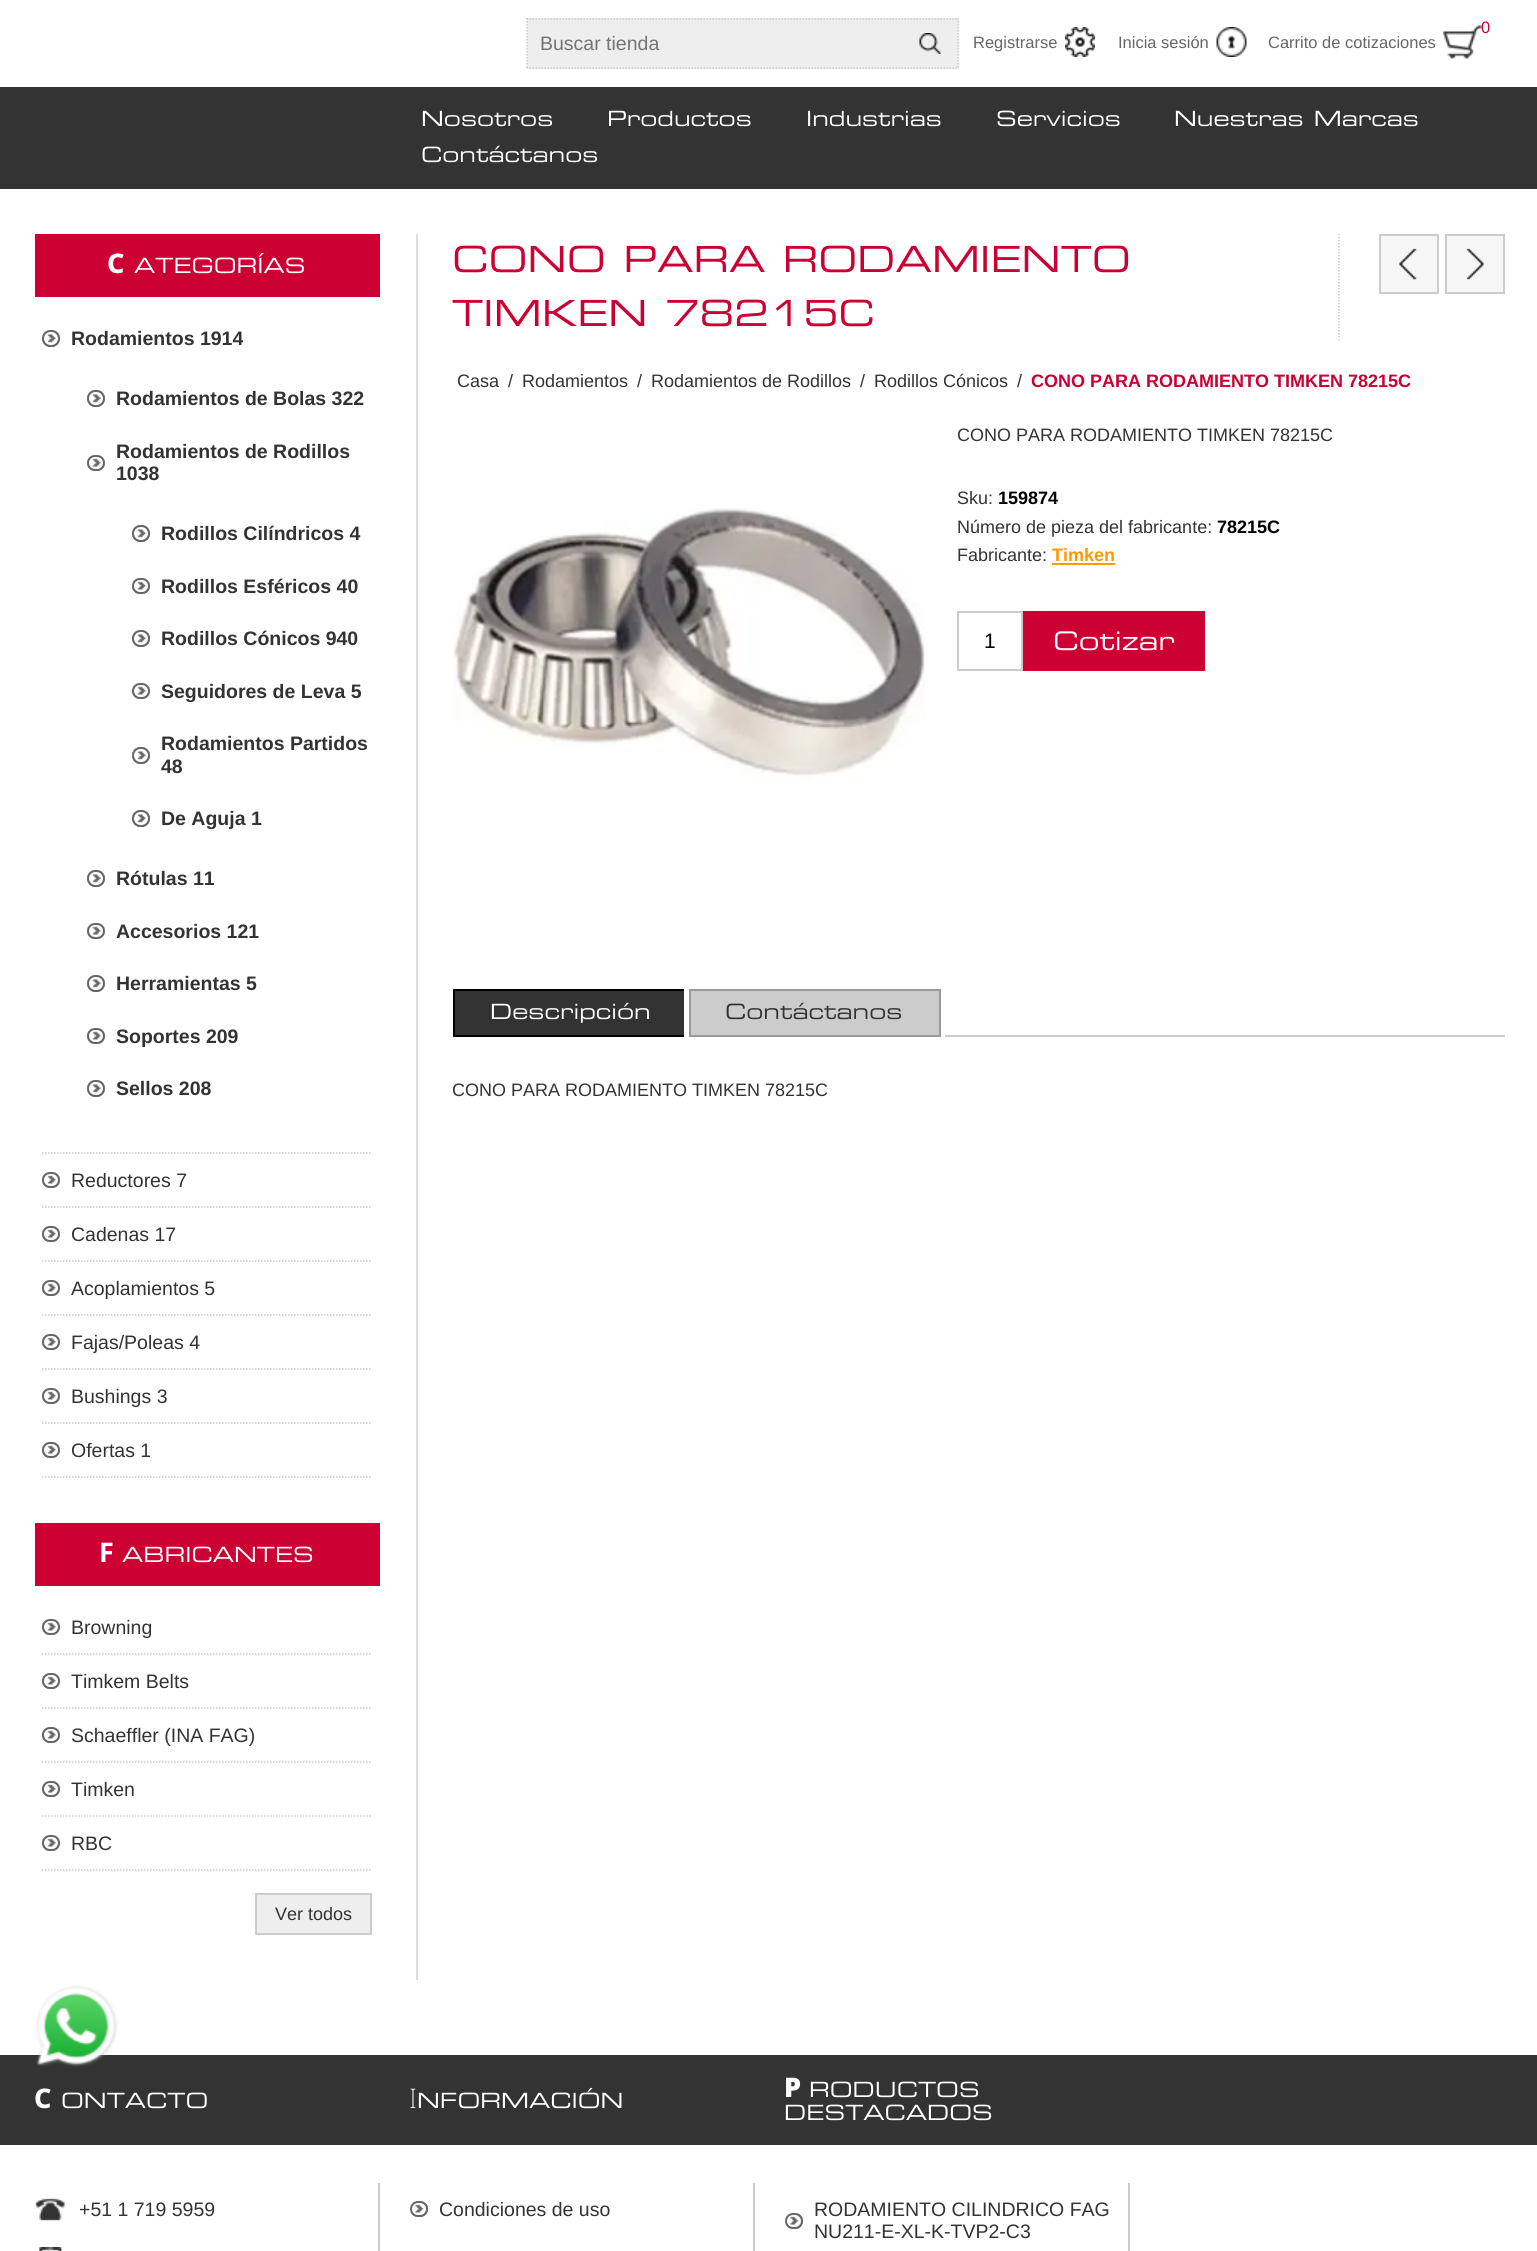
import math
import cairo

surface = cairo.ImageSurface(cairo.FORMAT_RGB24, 1537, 2251)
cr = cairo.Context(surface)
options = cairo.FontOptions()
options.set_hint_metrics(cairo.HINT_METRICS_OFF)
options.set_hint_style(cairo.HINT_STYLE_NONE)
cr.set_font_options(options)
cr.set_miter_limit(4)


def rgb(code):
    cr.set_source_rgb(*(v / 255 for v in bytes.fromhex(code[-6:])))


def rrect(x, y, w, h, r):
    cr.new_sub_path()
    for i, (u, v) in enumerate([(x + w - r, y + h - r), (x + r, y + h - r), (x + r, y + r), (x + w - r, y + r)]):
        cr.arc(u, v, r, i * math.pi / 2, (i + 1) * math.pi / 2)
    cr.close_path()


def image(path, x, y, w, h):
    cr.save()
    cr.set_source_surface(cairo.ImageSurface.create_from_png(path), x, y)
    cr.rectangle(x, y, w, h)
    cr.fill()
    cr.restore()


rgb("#ffffff")
cr.paint()
rgb("#eeeeee")
cr.rectangle(527, 18, 432, 51)
cr.fill()
cr.new_path()
cr.move_to(526.5, 19)
cr.line_to(958.5, 19)
rgb("#cccccc")
cr.set_line_width(1.5)
cr.set_dash([1.5, 1.5])
cr.stroke()
cr.new_path()
cr.move_to(958, 18)
cr.line_to(958, 69)
cr.stroke()
cr.new_path()
cr.move_to(526.5, 68)
cr.line_to(958.5, 68)
cr.stroke()
cr.new_path()
cr.move_to(527, 18)
cr.line_to(527, 69)
cr.stroke()
image("img/1.png", 919, 33, 22, 21)
image("img/2.png", 1065, 27, 30, 30)
image("img/3.png", 1216, 27, 31, 30)
image("img/4.png", 1443, 25, 39, 34)
rgb("#333333")
cr.rectangle(0, 87, 1537, 102)
cr.fill()
rgb("#cc0033")
cr.rectangle(35, 234, 345, 63)
cr.fill()
cr.new_path()
cr.move_to(42, 1153)
cr.line_to(372, 1153)
rgb("#cccccc")
cr.stroke()
rgb("#666666")
rrect(42, 330, 18, 17, 8.5)
cr.fill()
image("img/5.png", 42, 330, 18, 17)
rrect(43, 331, 16, 15, 7.5)
cr.set_line_width(2)
cr.set_dash([])
cr.stroke()
rrect(87, 390, 18, 17, 8.5)
cr.fill()
image("img/5.png", 87, 390, 18, 17)
rrect(88, 391, 16, 15, 7.5)
cr.stroke()
rrect(87, 455, 18, 16, 8)
cr.fill()
image("img/6.png", 87, 455, 18, 16)
rrect(88, 456, 16, 14, 7)
cr.stroke()
rrect(132, 525, 18, 17, 8.5)
cr.fill()
image("img/5.png", 132, 525, 18, 17)
rrect(133, 526, 16, 15, 7.5)
cr.stroke()
rrect(132, 578, 18, 16, 8)
cr.fill()
image("img/6.png", 132, 578, 18, 16)
rrect(133, 579, 16, 14, 7)
cr.stroke()
rrect(132, 630, 18, 17, 8.5)
cr.fill()
image("img/5.png", 132, 630, 18, 17)
rrect(133, 631, 16, 15, 7.5)
cr.stroke()
rrect(132, 683, 18, 16, 8)
cr.fill()
image("img/6.png", 132, 683, 18, 16)
rrect(133, 684, 16, 14, 7)
cr.stroke()
rrect(132, 747, 18, 17, 8.5)
cr.fill()
image("img/7.png", 132, 747, 18, 17)
rrect(133, 748, 16, 15, 7.5)
cr.stroke()
rrect(132, 810, 18, 17, 8.5)
cr.fill()
image("img/5.png", 132, 810, 18, 17)
rrect(133, 811, 16, 15, 7.5)
cr.stroke()
rrect(87, 870, 18, 17, 8.5)
cr.fill()
image("img/5.png", 87, 870, 18, 17)
rrect(88, 871, 16, 15, 7.5)
cr.stroke()
rrect(87, 923, 18, 16, 8)
cr.fill()
image("img/6.png", 87, 923, 18, 16)
rrect(88, 924, 16, 14, 7)
cr.stroke()
rrect(87, 975, 18, 17, 8.5)
cr.fill()
image("img/5.png", 87, 975, 18, 17)
rrect(88, 976, 16, 15, 7.5)
cr.stroke()
rrect(87, 1028, 18, 16, 8)
cr.fill()
image("img/6.png", 87, 1028, 18, 16)
rrect(88, 1029, 16, 14, 7)
cr.stroke()
rrect(87, 1080, 18, 17, 8.5)
cr.fill()
image("img/5.png", 87, 1080, 18, 17)
rrect(88, 1081, 16, 15, 7.5)
cr.stroke()
cr.new_path()
cr.move_to(42, 1207)
cr.line_to(372, 1207)
rgb("#cccccc")
cr.set_line_width(1.5)
cr.set_dash([1.5, 1.5])
cr.stroke()
rgb("#666666")
rrect(42, 1172, 18, 16, 8)
cr.fill()
image("img/6.png", 42, 1172, 18, 16)
rrect(43, 1173, 16, 14, 7)
cr.set_line_width(2)
cr.set_dash([])
cr.stroke()
cr.new_path()
cr.move_to(42, 1261)
cr.line_to(372, 1261)
rgb("#cccccc")
cr.set_line_width(1.5)
cr.set_dash([1.5, 1.5])
cr.stroke()
rgb("#666666")
rrect(42, 1226, 18, 16, 8)
cr.fill()
image("img/6.png", 42, 1226, 18, 16)
rrect(43, 1227, 16, 14, 7)
cr.set_line_width(2)
cr.set_dash([])
cr.stroke()
cr.new_path()
cr.move_to(42, 1315)
cr.line_to(372, 1315)
rgb("#cccccc")
cr.set_line_width(1.5)
cr.set_dash([1.5, 1.5])
cr.stroke()
rgb("#666666")
rrect(42, 1280, 18, 16, 8)
cr.fill()
image("img/6.png", 42, 1280, 18, 16)
rrect(43, 1281, 16, 14, 7)
cr.set_line_width(2)
cr.set_dash([])
cr.stroke()
cr.new_path()
cr.move_to(42, 1369)
cr.line_to(372, 1369)
rgb("#cccccc")
cr.set_line_width(1.5)
cr.set_dash([1.5, 1.5])
cr.stroke()
rgb("#666666")
rrect(42, 1334, 18, 16, 8)
cr.fill()
image("img/6.png", 42, 1334, 18, 16)
rrect(43, 1335, 16, 14, 7)
cr.set_line_width(2)
cr.set_dash([])
cr.stroke()
cr.new_path()
cr.move_to(42, 1423)
cr.line_to(372, 1423)
rgb("#cccccc")
cr.set_line_width(1.5)
cr.set_dash([1.5, 1.5])
cr.stroke()
rgb("#666666")
rrect(42, 1388, 18, 16, 8)
cr.fill()
image("img/6.png", 42, 1388, 18, 16)
rrect(43, 1389, 16, 14, 7)
cr.set_line_width(2)
cr.set_dash([])
cr.stroke()
cr.new_path()
cr.move_to(42, 1477)
cr.line_to(372, 1477)
rgb("#cccccc")
cr.set_line_width(1.5)
cr.set_dash([1.5, 1.5])
cr.stroke()
rgb("#666666")
rrect(42, 1442, 18, 16, 8)
cr.fill()
image("img/6.png", 42, 1442, 18, 16)
rrect(43, 1443, 16, 14, 7)
cr.set_line_width(2)
cr.set_dash([])
cr.stroke()
rgb("#dddddd")
cr.rectangle(416, 234, 2, 1746)
cr.fill()
rgb("#cc0033")
cr.rectangle(35, 1523, 345, 63)
cr.fill()
cr.new_path()
cr.move_to(42, 1654)
cr.line_to(372, 1654)
rgb("#cccccc")
cr.set_line_width(1.5)
cr.set_dash([1.5, 1.5])
cr.stroke()
rgb("#666666")
rrect(42, 1619, 18, 16, 8)
cr.fill()
image("img/6.png", 42, 1619, 18, 16)
rrect(43, 1620, 16, 14, 7)
cr.set_line_width(2)
cr.set_dash([])
cr.stroke()
cr.new_path()
cr.move_to(42, 1708)
cr.line_to(372, 1708)
rgb("#cccccc")
cr.set_line_width(1.5)
cr.set_dash([1.5, 1.5])
cr.stroke()
rgb("#666666")
rrect(42, 1673, 18, 16, 8)
cr.fill()
image("img/6.png", 42, 1673, 18, 16)
rrect(43, 1674, 16, 14, 7)
cr.set_line_width(2)
cr.set_dash([])
cr.stroke()
cr.new_path()
cr.move_to(42, 1762)
cr.line_to(372, 1762)
rgb("#cccccc")
cr.set_line_width(1.5)
cr.set_dash([1.5, 1.5])
cr.stroke()
rgb("#666666")
rrect(42, 1727, 18, 16, 8)
cr.fill()
image("img/6.png", 42, 1727, 18, 16)
rrect(43, 1728, 16, 14, 7)
cr.set_line_width(2)
cr.set_dash([])
cr.stroke()
cr.new_path()
cr.move_to(42, 1816)
cr.line_to(372, 1816)
rgb("#cccccc")
cr.set_line_width(1.5)
cr.set_dash([1.5, 1.5])
cr.stroke()
rgb("#666666")
rrect(42, 1781, 18, 16, 8)
cr.fill()
image("img/6.png", 42, 1781, 18, 16)
rrect(43, 1782, 16, 14, 7)
cr.set_line_width(2)
cr.set_dash([])
cr.stroke()
cr.new_path()
cr.move_to(42, 1870)
cr.line_to(372, 1870)
rgb("#cccccc")
cr.set_line_width(1.5)
cr.set_dash([1.5, 1.5])
cr.stroke()
rgb("#666666")
rrect(42, 1835, 18, 16, 8)
cr.fill()
image("img/6.png", 42, 1835, 18, 16)
rrect(43, 1836, 16, 14, 7)
cr.set_line_width(2)
cr.set_dash([])
cr.stroke()
rgb("#eeeeee")
cr.rectangle(256, 1894, 115, 40)
cr.fill_preserve()
rgb("#cccccc")
cr.stroke()
cr.new_path()
cr.move_to(1339, 234)
cr.line_to(1339, 342)
cr.set_line_width(1.5)
cr.set_dash([1.5, 1.5])
cr.stroke()
rgb("#f6f6f6")
cr.rectangle(1381, 236, 56, 56)
cr.fill()
image("img/8.png", 1399, 248, 18, 32)
cr.rectangle(1380, 235, 58, 58)
rgb("#cccccc")
cr.set_line_width(2)
cr.set_dash([])
cr.stroke()
rgb("#f6f6f6")
cr.rectangle(1447, 236, 56, 56)
cr.fill()
image("img/9.png", 1466, 248, 18, 32)
cr.rectangle(1446, 235, 58, 58)
rgb("#cccccc")
cr.stroke()
image("img/10.png", 453, 508, 472, 273)
rgb("#ff9900")
cr.rectangle(1052, 563, 63, 2)
cr.fill()
cr.rectangle(958, 612, 64, 58)
rgb("#cccccc")
cr.stroke()
for x, y, w, h, color in [
    (1023, 611, 182, 60, "#cc0033"),
    (945, 1035, 560, 2, "#cccccc"),
    (455, 991, 229, 44, "#333333"),
]:
    rgb(color)
    cr.rectangle(x, y, w, h)
    cr.fill()
cr.rectangle(454, 990, 234, 46)
rgb("#000000")
cr.stroke()
cr.rectangle(686.5, 986.5, 256, 52)
rgb("#ffffff")
cr.set_line_width(5)
cr.stroke()
rgb("#cccccc")
cr.rectangle(690, 990, 250, 46)
cr.fill_preserve()
rgb("#999999")
cr.set_line_width(2)
cr.stroke()
rgb("#333333")
cr.rectangle(0, 2055, 1537, 90)
cr.fill()
image("img/11.png", 36, 1985, 82, 82)
rgb("#cccccc")
cr.rectangle(378, 2183, 2, 68)
cr.fill()
image("img/12.png", 35, 2198, 30, 23)
image("img/13.png", 39, 2247, 23, 4)
cr.rectangle(753, 2183, 2, 68)
cr.fill()
rgb("#666666")
rrect(410, 2201, 18, 16, 8)
cr.fill()
image("img/14.png", 410, 2201, 18, 16)
rrect(411, 2202, 16, 14, 7)
cr.stroke()
rgb("#cccccc")
cr.rectangle(1128, 2183, 2, 68)
cr.fill()
rgb("#666666")
rrect(785, 2213, 18, 16, 8)
cr.fill()
image("img/15.png", 785, 2213, 18, 16)
rrect(786, 2214, 16, 14, 7)
cr.stroke()
cr.select_font_face("Liberation Sans")
cr.set_font_size(19.5)
rgb("#757575")
cr.move_to(540, 50)
cr.show_text("Buscar tienda")
cr.set_font_size(16.5)
rgb("#666666")
cr.move_to(973, 48)
cr.show_text("Registrarse")
cr.move_to(1118, 48)
cr.show_text("Inicia sesión")
rgb("#cc0033")
cr.move_to(1481, 33)
cr.show_text("0")
rgb("#666666")
cr.move_to(1268, 48)
cr.show_text("Carrito de cotizaciones")
cr.select_font_face("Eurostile")
cr.set_font_size(21)
rgb("#ffffff")
for x, y, s in [
    (421, 126, "Nosotros"),
    (607, 126, "Productos"),
    (806, 126, "Industrias"),
    (996, 126, "Servicios"),
    (1174, 126, "Nuestras Marcas"),
    (421, 162, "Contáctanos"),
]:
    cr.move_to(x, y)
    cr.show_text(s)
cr.select_font_face("Noto Sans ExtraBold")
cr.set_font_size(27)
cr.move_to(107, 273)
cr.show_text("C")
cr.select_font_face("Eurostile")
cr.set_font_size(21)
cr.move_to(134, 273)
cr.show_text("ATEGORÍAS")
cr.select_font_face("Liberation Sans", cairo.FONT_SLANT_NORMAL, cairo.FONT_WEIGHT_BOLD)
cr.set_font_size(19.5)
rgb("#333333")
for x, y, s in [
    (71, 345, "Rodamientos 1914"),
    (116, 405, "Rodamientos de Bolas 322"),
    (116, 458, "Rodamientos de Rodillos"),
    (116, 480, "1038"),
    (161, 540, "Rodillos Cilíndricos 4"),
    (161, 593, "Rodillos Esféricos 40"),
    (161, 645, "Rodillos Cónicos 940"),
    (161, 698, "Seguidores de Leva 5"),
    (161, 750, "Rodamientos Partidos"),
    (161, 773, "48"),
    (161, 825, "De Aguja 1"),
    (116, 885, "Rótulas 11"),
    (116, 938, "Accesorios 121"),
    (116, 990, "Herramientas 5"),
    (116, 1043, "Soportes 209"),
    (116, 1095, "Sellos 208"),
]:
    cr.move_to(x, y)
    cr.show_text(s)
cr.select_font_face("Liberation Sans")
for x, y, s in [
    (71, 1187, "Reductores 7"),
    (71, 1241, "Cadenas 17"),
    (71, 1295, "Acoplamientos 5"),
    (71, 1349, "Fajas/Poleas 4"),
    (71, 1403, "Bushings 3"),
    (71, 1457, "Ofertas 1"),
]:
    cr.move_to(x, y)
    cr.show_text(s)
cr.select_font_face("Noto Sans", cairo.FONT_SLANT_NORMAL, cairo.FONT_WEIGHT_BOLD)
cr.set_font_size(27)
rgb("#ffffff")
cr.move_to(99, 1562)
cr.show_text("F")
cr.select_font_face("Eurostile")
cr.set_font_size(21)
cr.move_to(122, 1562)
cr.show_text("ABRICANTES")
cr.select_font_face("Liberation Sans")
cr.set_font_size(19.5)
rgb("#333333")
for x, y, s in [
    (71, 1634, "Browning"),
    (71, 1688, "Timkem Belts"),
    (71, 1742, "Schaeffler (INA FAG)"),
    (71, 1796, "Timken"),
    (71, 1850, "RBC"),
]:
    cr.move_to(x, y)
    cr.show_text(s)
cr.set_font_size(18)
cr.move_to(275, 1920)
cr.show_text("Ver todos")
cr.select_font_face("Eurostile")
cr.set_font_size(36)
rgb("#cc0033")
cr.move_to(452, 272)
cr.show_text("CONO PARA RODAMIENTO")
cr.move_to(452, 326)
cr.show_text("TIMKEN 78215C")
cr.select_font_face("Liberation Sans")
cr.set_font_size(18)
rgb("#333333")
for x, y, s in [
    (457, 387, "Casa"),
    (508, 387, "/"),
    (522, 387, "Rodamientos"),
    (637, 387, "/"),
    (651, 387, "Rodamientos de Rodillos"),
    (860, 387, "/"),
    (874, 387, "Rodillos Cónicos"),
    (1017, 387, "/"),
]:
    cr.move_to(x, y)
    cr.show_text(s)
cr.select_font_face("Liberation Sans", cairo.FONT_SLANT_NORMAL, cairo.FONT_WEIGHT_BOLD)
rgb("#cc0033")
cr.move_to(1031, 387)
cr.show_text("CONO PARA RODAMIENTO TIMKEN 78215C")
cr.select_font_face("Liberation Sans")
rgb("#333333")
cr.move_to(957, 441)
cr.show_text("CONO PARA RODAMIENTO TIMKEN 78215C")
cr.move_to(957, 504)
cr.show_text("Sku:")
cr.select_font_face("Liberation Sans", cairo.FONT_SLANT_NORMAL, cairo.FONT_WEIGHT_BOLD)
rgb("#000000")
cr.move_to(998, 504)
cr.show_text("159874")
cr.select_font_face("Liberation Sans")
rgb("#333333")
cr.move_to(957, 533)
cr.show_text("Número de pieza del fabricante:")
cr.select_font_face("Liberation Sans", cairo.FONT_SLANT_NORMAL, cairo.FONT_WEIGHT_BOLD)
rgb("#000000")
cr.move_to(1217, 533)
cr.show_text("78215C")
cr.select_font_face("Liberation Sans")
rgb("#333333")
cr.move_to(957, 561)
cr.show_text("Fabricante:")
cr.select_font_face("Liberation Sans", cairo.FONT_SLANT_NORMAL, cairo.FONT_WEIGHT_BOLD)
rgb("#ff9900")
cr.move_to(1052, 561)
cr.show_text("Timken")
cr.select_font_face("Liberation Sans")
cr.set_font_size(21)
rgb("#000000")
cr.move_to(984, 648)
cr.show_text("1")
cr.select_font_face("Eurostile")
cr.set_font_size(25.5)
rgb("#ffffff")
cr.move_to(1053, 650)
cr.show_text("Cotizar")
cr.set_font_size(21)
cr.move_to(490, 1019)
cr.show_text("Descripción")
rgb("#333333")
cr.move_to(725, 1019)
cr.show_text("Contáctanos")
cr.select_font_face("Liberation Sans")
cr.set_font_size(18)
cr.move_to(452, 1096)
cr.show_text("CONO PARA RODAMIENTO TIMKEN 78215C")
cr.select_font_face("Noto Sans ExtraBold")
cr.set_font_size(27)
rgb("#ffffff")
cr.move_to(34, 2108)
cr.show_text("C")
cr.select_font_face("Eurostile")
cr.set_font_size(21)
cr.move_to(61, 2108)
cr.show_text("ONTACTO")
cr.select_font_face("Liberation Sans")
cr.set_font_size(19.5)
rgb("#333333")
cr.move_to(79, 2216)
cr.show_text("+51 1 719 5959")
cr.select_font_face("Noto Sans ExtraLight")
cr.set_font_size(27)
rgb("#ffffff")
cr.move_to(409, 2108)
cr.show_text("I")
cr.select_font_face("Eurostile")
cr.set_font_size(21)
cr.move_to(417, 2108)
cr.show_text("NFORMACIÓN")
cr.select_font_face("Liberation Sans")
cr.set_font_size(19.5)
rgb("#333333")
cr.move_to(439, 2216)
cr.show_text("Condiciones de uso")
cr.select_font_face("Noto Sans Black")
cr.set_font_size(27)
rgb("#ffffff")
cr.move_to(784, 2097)
cr.show_text("P")
cr.select_font_face("Eurostile")
cr.set_font_size(21)
cr.move_to(809, 2097)
cr.show_text("RODUCTOS")
cr.move_to(784, 2120)
cr.show_text("DESTACADOS")
cr.select_font_face("Liberation Sans")
cr.set_font_size(19.5)
rgb("#333333")
cr.move_to(814, 2216)
cr.show_text("RODAMIENTO CILINDRICO FAG")
cr.move_to(814, 2238)
cr.show_text("NU211-E-XL-K-TVP2-C3")
surface.write_to_png("page.png")
